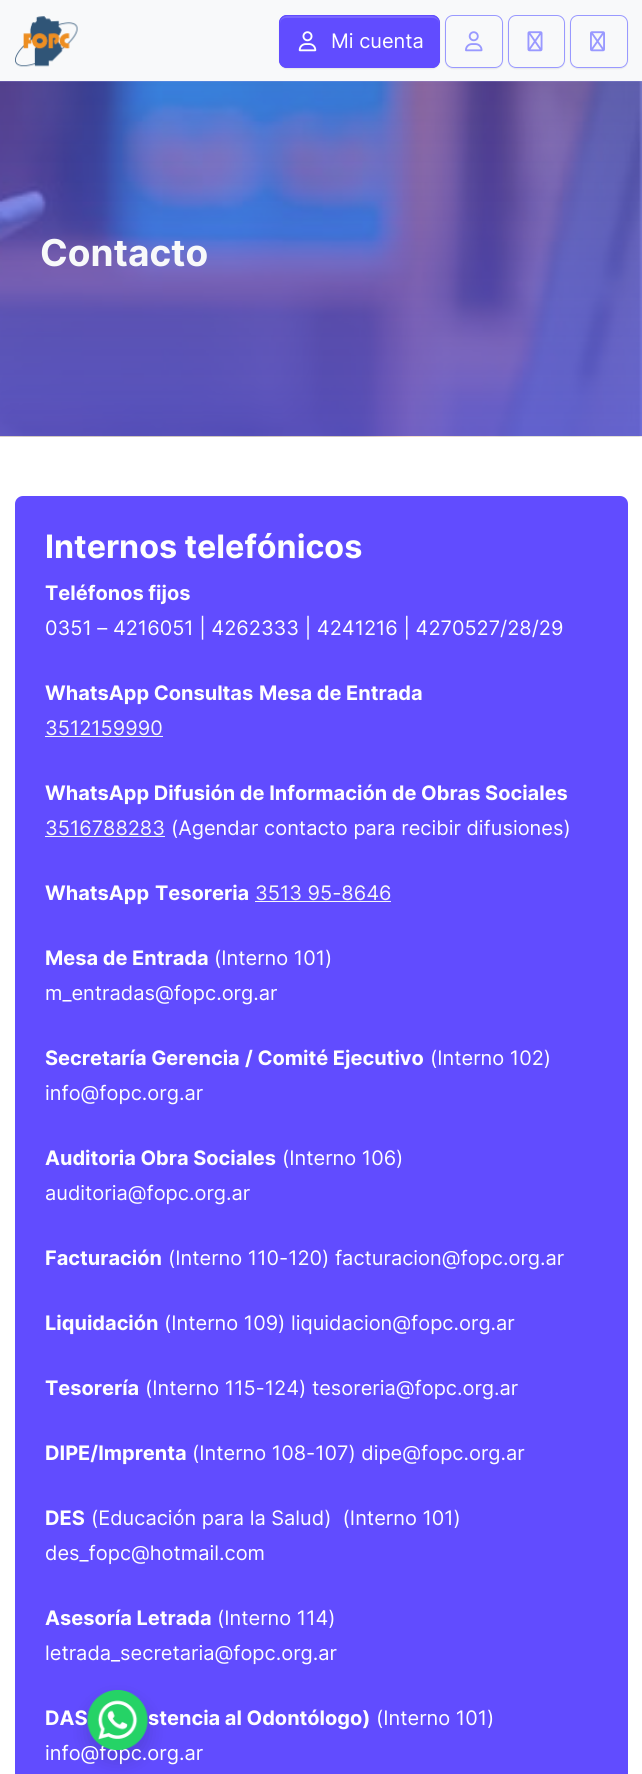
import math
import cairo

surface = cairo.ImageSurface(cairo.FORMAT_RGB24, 642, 1774)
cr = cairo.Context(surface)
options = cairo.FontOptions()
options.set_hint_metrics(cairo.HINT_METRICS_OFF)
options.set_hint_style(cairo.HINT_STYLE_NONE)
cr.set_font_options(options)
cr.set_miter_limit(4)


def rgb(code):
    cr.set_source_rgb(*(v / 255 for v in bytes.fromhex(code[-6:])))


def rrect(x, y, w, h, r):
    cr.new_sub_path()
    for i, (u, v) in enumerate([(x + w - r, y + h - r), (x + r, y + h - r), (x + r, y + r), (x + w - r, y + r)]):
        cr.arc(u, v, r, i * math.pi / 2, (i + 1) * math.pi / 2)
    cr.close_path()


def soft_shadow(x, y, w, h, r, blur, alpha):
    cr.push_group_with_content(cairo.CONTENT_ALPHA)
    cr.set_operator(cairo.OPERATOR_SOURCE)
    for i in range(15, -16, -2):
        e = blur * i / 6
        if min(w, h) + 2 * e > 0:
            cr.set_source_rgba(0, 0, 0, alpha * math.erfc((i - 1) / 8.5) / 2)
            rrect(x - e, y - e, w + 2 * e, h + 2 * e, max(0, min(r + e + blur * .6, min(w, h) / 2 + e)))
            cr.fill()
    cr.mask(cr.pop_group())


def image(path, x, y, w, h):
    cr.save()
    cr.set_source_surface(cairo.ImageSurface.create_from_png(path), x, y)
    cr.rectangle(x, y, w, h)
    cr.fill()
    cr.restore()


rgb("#ffffff")
cr.paint()
rgb("#f8f9fa")
cr.rectangle(0, 0, 642, 81)
cr.fill()
image("img/1.png", 15, 16, 63, 51)
rgb("#000000")
soft_shadow(279, 16, 161, 53, 8, 0.5, 0.07)
rgb("#614cff")
rrect(279, 15, 161, 53, 8)
cr.fill()
rgb("#7967ff")
cr.new_path()
cr.move_to(286, 18)
cr.line_to(432, 18)
cr.curve_to(436, 18, 439, 20, 439, 24)
cr.line_to(439, 22)
cr.curve_to(439, 19, 436, 16, 433, 16)
cr.line_to(286, 16)
cr.curve_to(283, 16, 280, 19, 280, 22)
cr.line_to(280, 24)
cr.curve_to(280, 20, 283, 18, 286, 18)
cr.close_path()
cr.fill()
rrect(279.5, 15.5, 160, 52, 7.5)
rgb("#614cff")
cr.set_line_width(1)
cr.stroke()
image("img/2.png", 298, 31, 19, 21)
cr.save()
cr.set_fill_rule(cairo.FILL_RULE_EVEN_ODD)
cr.new_path()
cr.move_to(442, 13)
cr.line_to(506, 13)
cr.line_to(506, 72)
cr.line_to(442, 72)
cr.close_path()
cr.move_to(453, 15)
cr.line_to(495, 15)
cr.curve_to(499.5, 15, 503, 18.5, 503, 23)
cr.line_to(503, 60)
cr.curve_to(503, 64.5, 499.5, 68, 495, 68)
cr.line_to(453, 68)
cr.curve_to(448.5, 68, 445, 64.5, 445, 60)
cr.line_to(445, 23)
cr.curve_to(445, 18.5, 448.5, 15, 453, 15)
cr.close_path()
cr.clip()
rgb("#000000")
soft_shadow(445, 16, 58, 53, 8, 0.5, 0.07)
cr.restore()
rrect(445.5, 15.5, 57, 52, 7.5)
rgb("#9999ff")
cr.stroke()
image("img/3.png", 465, 31, 18, 21)
cr.save()
cr.set_fill_rule(cairo.FILL_RULE_EVEN_ODD)
cr.new_path()
cr.move_to(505, 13)
cr.line_to(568, 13)
cr.line_to(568, 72)
cr.line_to(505, 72)
cr.close_path()
cr.move_to(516, 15)
cr.line_to(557, 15)
cr.curve_to(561.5, 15, 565, 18.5, 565, 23)
cr.line_to(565, 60)
cr.curve_to(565, 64.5, 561.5, 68, 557, 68)
cr.line_to(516, 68)
cr.curve_to(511.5, 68, 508, 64.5, 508, 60)
cr.line_to(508, 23)
cr.curve_to(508, 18.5, 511.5, 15, 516, 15)
cr.close_path()
cr.clip()
rgb("#000000")
soft_shadow(508, 16, 57, 53, 8, 0.5, 0.07)
cr.restore()
rrect(508.5, 15.5, 56, 52, 7.5)
cr.stroke()
image("img/4.png", 527, 31, 16, 21)
cr.save()
cr.set_fill_rule(cairo.FILL_RULE_EVEN_ODD)
cr.new_path()
cr.move_to(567, 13)
cr.line_to(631, 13)
cr.line_to(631, 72)
cr.line_to(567, 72)
cr.close_path()
cr.move_to(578, 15)
cr.line_to(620, 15)
cr.curve_to(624.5, 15, 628, 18.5, 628, 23)
cr.line_to(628, 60)
cr.curve_to(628, 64.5, 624.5, 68, 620, 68)
cr.line_to(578, 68)
cr.curve_to(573.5, 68, 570, 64.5, 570, 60)
cr.line_to(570, 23)
cr.curve_to(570, 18.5, 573.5, 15, 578, 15)
cr.close_path()
cr.clip()
rgb("#000000")
soft_shadow(570, 16, 58, 53, 8, 0.5, 0.07)
cr.restore()
rrect(570.5, 15.5, 57, 52, 7.5)
cr.stroke()
image("img/5.png", 590, 31, 15, 21)
image("img/6.png", 0, 81, 642, 356)
gradient = cairo.LinearGradient(321, 81, 321, 436)
gradient.add_color_stop_rgba(0, 0.361, 0.361, 0.902, 0.6)
gradient.add_color_stop_rgba(1, 0.361, 0.361, 0.902, 0.8)
cr.set_source(gradient)
cr.rectangle(0, 81, 642, 355)
cr.fill()
rgb("#614cff")
rrect(15, 496, 613, 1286, 8)
cr.fill()
for x, y, w, h, color in [
    (45, 736, 118, 1, "#f8f9fa"),
    (45, 836, 120, 1, "#f8f9fa"),
    (255, 901, 136, 1, "#f8f9fa"),
]:
    rgb(color)
    cr.rectangle(x, y, w, h)
    cr.fill()
rgb("#000000")
soft_shadow(88, 1700, 60, 60, 30, 10, 0.15)
cr.select_font_face("Inter")
cr.set_font_size(20)
rgb("#ffffff")
cr.move_to(331, 48)
cr.show_text("Mi cuenta")
cr.select_font_face("Inter", cairo.FONT_SLANT_NORMAL, cairo.FONT_WEIGHT_BOLD)
cr.set_font_size(37)
rgb("#f8f9fa")
cr.move_to(40, 266)
cr.show_text("Contacto")
cr.set_font_size(32.25)
rgb("#ffffff")
cr.move_to(45, 558)
cr.show_text("Internos telefónicos")
cr.set_font_size(20)
cr.move_to(45, 600)
cr.show_text("Teléfonos fijos")
cr.select_font_face("Inter")
cr.move_to(45, 635)
cr.show_text("0351 – 4216051 | 4262333 | 4241216 | 4270527/28/29")
cr.select_font_face("Inter", cairo.FONT_SLANT_NORMAL, cairo.FONT_WEIGHT_BOLD)
cr.move_to(45, 700)
cr.show_text("WhatsApp Consultas")
cr.move_to(259, 700)
cr.show_text("Mesa de Entrada")
cr.select_font_face("Inter")
rgb("#f8f9fa")
cr.move_to(45, 735)
cr.show_text("3512159990")
cr.select_font_face("Inter", cairo.FONT_SLANT_NORMAL, cairo.FONT_WEIGHT_BOLD)
rgb("#ffffff")
cr.move_to(45, 800)
cr.show_text("WhatsApp Difusión de Información de Obras Sociales")
cr.select_font_face("Inter")
rgb("#f8f9fa")
cr.move_to(45, 835)
cr.show_text("3516788283")
rgb("#ffffff")
cr.move_to(171, 835)
cr.show_text("(Agendar contacto para recibir difusiones)")
cr.select_font_face("Inter", cairo.FONT_SLANT_NORMAL, cairo.FONT_WEIGHT_BOLD)
cr.move_to(45, 900)
cr.show_text("WhatsApp")
cr.move_to(155, 900)
cr.show_text("Tesoreria")
cr.select_font_face("Inter")
rgb("#f8f9fa")
cr.move_to(255, 900)
cr.show_text("3513 95-8646")
cr.select_font_face("Inter", cairo.FONT_SLANT_NORMAL, cairo.FONT_WEIGHT_BOLD)
rgb("#ffffff")
cr.move_to(45, 965)
cr.show_text("Mesa de Entrada")
cr.select_font_face("Inter")
cr.move_to(214, 965)
cr.show_text("(Interno 101)")
cr.move_to(45, 1000)
cr.show_text("m_entradas@fopc.org.ar")
cr.select_font_face("Inter", cairo.FONT_SLANT_NORMAL, cairo.FONT_WEIGHT_BOLD)
cr.move_to(45, 1065)
cr.show_text("Secretaría Gerencia")
cr.move_to(245, 1065)
cr.show_text("/ Comité Ejecutivo")
cr.select_font_face("Inter")
cr.move_to(430, 1065)
cr.show_text("(Interno 102)")
cr.move_to(45, 1100)
cr.show_text("info@fopc.org.ar")
cr.select_font_face("Inter", cairo.FONT_SLANT_NORMAL, cairo.FONT_WEIGHT_BOLD)
cr.move_to(45, 1165)
cr.show_text("Auditoria Obra Sociales")
cr.select_font_face("Inter")
cr.move_to(282, 1165)
cr.show_text("(Interno 106)")
cr.move_to(45, 1200)
cr.show_text("auditoria@fopc.org.ar")
cr.select_font_face("Inter", cairo.FONT_SLANT_NORMAL, cairo.FONT_WEIGHT_BOLD)
cr.move_to(45, 1265)
cr.show_text("Facturación")
cr.select_font_face("Inter")
cr.move_to(168, 1265)
cr.show_text("(Interno 110-120) facturacion@fopc.org.ar")
cr.select_font_face("Inter", cairo.FONT_SLANT_NORMAL, cairo.FONT_WEIGHT_BOLD)
cr.move_to(45, 1330)
cr.show_text("Liquidación")
cr.select_font_face("Inter")
cr.move_to(164, 1330)
cr.show_text("(Interno 109) liquidacion@fopc.org.ar")
cr.select_font_face("Inter", cairo.FONT_SLANT_NORMAL, cairo.FONT_WEIGHT_BOLD)
cr.move_to(45, 1395)
cr.show_text("Tesorería")
cr.select_font_face("Inter")
cr.move_to(145, 1395)
cr.show_text("(Interno 115-124) tesoreria@fopc.org.ar")
cr.select_font_face("Inter", cairo.FONT_SLANT_NORMAL, cairo.FONT_WEIGHT_BOLD)
cr.move_to(45, 1460)
cr.show_text("DIPE/Imprenta")
cr.select_font_face("Inter")
cr.move_to(192, 1460)
cr.show_text("(Interno 108-107) dipe@fopc.org.ar")
cr.select_font_face("Inter", cairo.FONT_SLANT_NORMAL, cairo.FONT_WEIGHT_BOLD)
cr.move_to(45, 1525)
cr.show_text("DES")
cr.select_font_face("Inter")
cr.move_to(91, 1525)
cr.show_text("(Educación para la Salud)  (Interno 101)")
cr.move_to(45, 1560)
cr.show_text("des_fopc@hotmail.com")
cr.select_font_face("Inter", cairo.FONT_SLANT_NORMAL, cairo.FONT_WEIGHT_BOLD)
cr.move_to(45, 1625)
cr.show_text("Asesoría Letrada")
cr.select_font_face("Inter")
cr.move_to(217, 1625)
cr.show_text("(Interno 114)")
cr.move_to(45, 1660)
cr.show_text("letrada_secretaria@fopc.org.ar")
cr.select_font_face("Inter", cairo.FONT_SLANT_NORMAL, cairo.FONT_WEIGHT_BOLD)
cr.move_to(45, 1725)
cr.show_text("DAS")
cr.move_to(148, 1725)
cr.show_text("stencia al Odontólogo)")
cr.select_font_face("Inter")
cr.move_to(376, 1725)
cr.show_text("(Interno 101)")
cr.move_to(45, 1760)
cr.show_text("info@fopc.org.ar")
image("img/7.png", 87, 1690, 61, 60)
surface.write_to_png("page.png")
